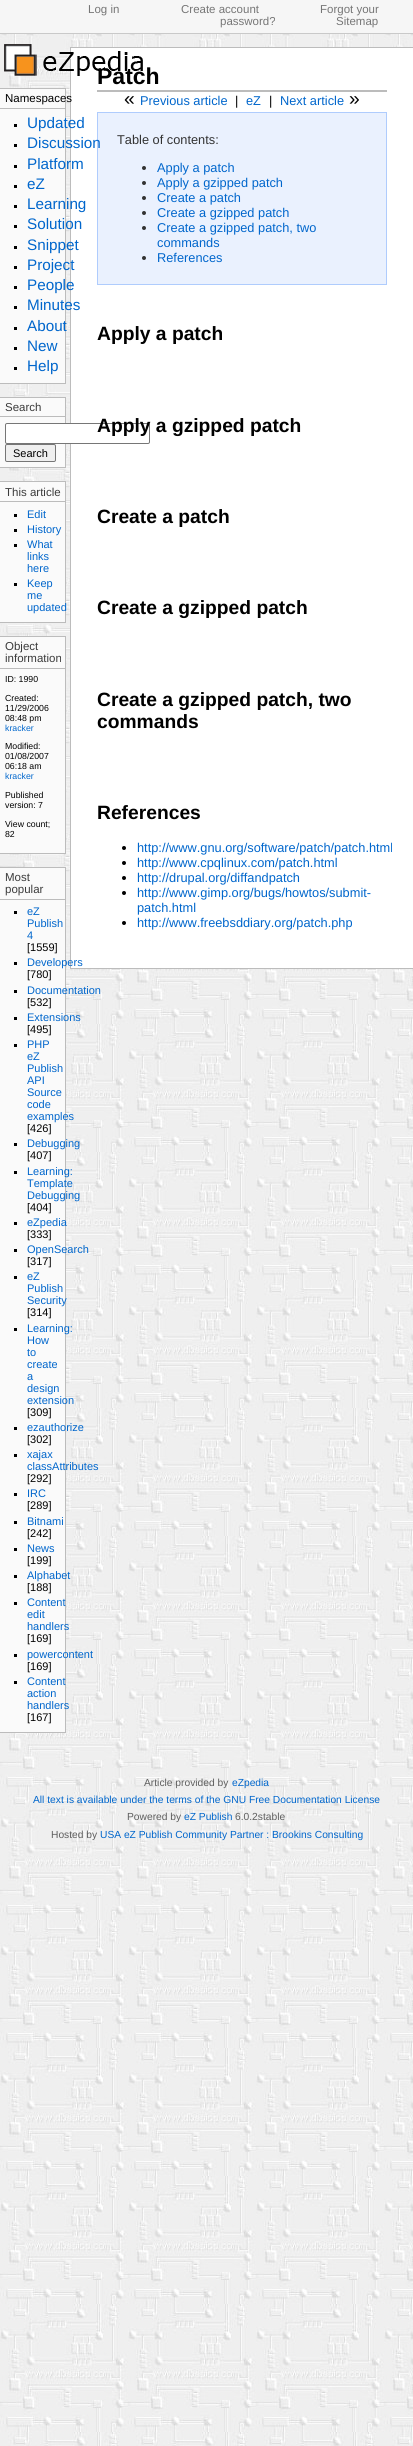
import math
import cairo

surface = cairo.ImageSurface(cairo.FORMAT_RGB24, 413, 2446)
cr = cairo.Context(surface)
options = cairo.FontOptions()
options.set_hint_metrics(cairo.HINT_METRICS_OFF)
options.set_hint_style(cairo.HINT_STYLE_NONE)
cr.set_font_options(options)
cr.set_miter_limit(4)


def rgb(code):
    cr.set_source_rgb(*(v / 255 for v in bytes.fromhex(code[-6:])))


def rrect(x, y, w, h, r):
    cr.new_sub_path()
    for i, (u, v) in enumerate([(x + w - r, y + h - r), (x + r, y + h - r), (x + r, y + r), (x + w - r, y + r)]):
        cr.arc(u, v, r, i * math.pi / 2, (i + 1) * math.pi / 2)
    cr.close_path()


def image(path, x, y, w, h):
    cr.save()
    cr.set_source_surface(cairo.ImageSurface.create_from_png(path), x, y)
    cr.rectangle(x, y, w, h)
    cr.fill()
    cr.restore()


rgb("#ffffff")
cr.paint()
image("img/1.png", 0, 34, 413, 2412)
for x, y, w, h, color in [
    (0, 0, 413, 33, "#f6f6f6"),
    (0, 33, 413, 1, "#c9c9c9"),
    (0, 89, 65, 294, "#fafafa"),
    (0, 88, 66, 1, "#bcbcbc"),
    (65, 88, 1, 296, "#bcbcbc"),
    (0, 383, 66, 1, "#bcbcbc"),
    (0, 108, 65, 1, "#bcbcbc"),
    (14, 124, 3, 3, "#000000"),
    (14, 144, 3, 3, "#000000"),
    (14, 165, 3, 3, "#000000"),
    (14, 185, 3, 3, "#000000"),
    (14, 205, 3, 3, "#000000"),
    (14, 225, 3, 3, "#000000"),
    (14, 246, 3, 3, "#000000"),
    (14, 266, 3, 3, "#000000"),
    (14, 286, 3, 3, "#000000"),
    (14, 306, 3, 3, "#000000"),
    (14, 327, 3, 3, "#000000"),
    (14, 347, 3, 3, "#000000"),
    (14, 367, 3, 3, "#000000"),
    (0, 398, 65, 69, "#fafafa"),
    (0, 397, 66, 1, "#bcbcbc"),
    (65, 397, 1, 71, "#bcbcbc"),
    (0, 467, 66, 1, "#bcbcbc"),
    (0, 416, 65, 1, "#bcbcbc"),
    (71, 48, 342, 920, "#ffffff"),
    (70, 47, 343, 1, "#bcbcbc"),
    (70, 968, 343, 1, "#bcbcbc"),
    (70, 47, 1, 922, "#bcbcbc"),
]:
    rgb(color)
    cr.rectangle(x, y, w, h)
    cr.fill()
rgb("#ffffff")
rrect(5.5, 423.5, 144, 20, 1.5)
cr.fill_preserve()
rgb("#767676")
cr.set_line_width(1)
cr.stroke()
rgb("#efefef")
rrect(5.5, 444.5, 50, 17, 1.5)
cr.fill_preserve()
rgb("#767676")
cr.stroke()
for x, y, w, h, color in [
    (0, 482, 65, 140, "#fafafa"),
    (0, 481, 66, 1, "#bcbcbc"),
    (65, 481, 1, 142, "#bcbcbc"),
    (0, 622, 66, 1, "#bcbcbc"),
    (0, 501, 65, 1, "#bcbcbc"),
    (14, 514, 3, 3, "#000000"),
    (14, 529, 3, 3, "#000000"),
    (14, 544, 3, 3, "#000000"),
    (14, 583, 3, 3, "#000000"),
    (0, 637, 65, 216, "#fafafa"),
    (0, 636, 66, 1, "#bcbcbc"),
    (65, 636, 1, 218, "#bcbcbc"),
    (0, 853, 66, 1, "#bcbcbc"),
    (0, 668, 65, 1, "#bcbcbc"),
    (0, 868, 65, 864, "#fafafa"),
    (0, 867, 66, 1, "#bcbcbc"),
    (65, 867, 1, 866, "#bcbcbc"),
    (0, 1732, 66, 1, "#bcbcbc"),
    (0, 899, 65, 1, "#bcbcbc"),
    (14, 911, 3, 3, "#000000"),
    (14, 962, 3, 3, "#000000"),
    (14, 990, 3, 3, "#000000"),
    (14, 1017, 3, 3, "#000000"),
    (14, 1044, 3, 3, "#000000"),
    (14, 1143, 3, 3, "#000000"),
    (14, 1171, 3, 3, "#000000"),
    (14, 1222, 3, 3, "#000000"),
    (14, 1249, 3, 3, "#000000"),
    (14, 1276, 3, 3, "#000000"),
    (14, 1328, 3, 3, "#000000"),
    (14, 1427, 3, 3, "#000000"),
    (14, 1454, 3, 3, "#000000"),
    (14, 1493, 3, 3, "#000000"),
    (14, 1521, 3, 3, "#000000"),
    (14, 1548, 3, 3, "#000000"),
    (14, 1575, 3, 3, "#000000"),
    (14, 1602, 3, 3, "#000000"),
    (14, 1654, 3, 3, "#000000"),
    (14, 1681, 3, 3, "#000000"),
    (97, 90, 290, 2, "#bcbcbc"),
]:
    rgb(color)
    cr.rectangle(x, y, w, h)
    cr.fill()
rgb("#eaf1fe")
cr.rectangle(97.5, 112.5, 289, 172)
cr.fill_preserve()
rgb("#afccfd")
cr.stroke()
rgb("#333333")
cr.arc(144, 168, 2, 0, 2 * math.pi)
cr.fill()
cr.arc(144, 183, 2, 0, 2 * math.pi)
cr.fill()
cr.arc(144, 198, 2, 0, 2 * math.pi)
cr.fill()
cr.arc(144, 213, 2, 0, 2 * math.pi)
cr.fill()
cr.arc(144, 228, 2, 0, 2 * math.pi)
cr.fill()
cr.arc(144, 258, 2, 0, 2 * math.pi)
cr.fill()
rgb("#000000")
cr.arc(124, 848, 2, 0, 2 * math.pi)
cr.fill()
cr.arc(124, 863, 2, 0, 2 * math.pi)
cr.fill()
cr.arc(124, 878, 2, 0, 2 * math.pi)
cr.fill()
cr.arc(124, 893, 2, 0, 2 * math.pi)
cr.fill()
cr.arc(124, 923, 2, 0, 2 * math.pi)
cr.fill()
cr.select_font_face("Liberation Sans")
cr.set_font_size(11.5)
rgb("#767676")
for x, y, s in [
    (88, 13, "Log in"),
    (181, 13, "Create account"),
    (320, 13, "Forgot your"),
    (220, 25, "password?"),
    (336, 25, "Sitemap"),
]:
    cr.move_to(x, y)
    cr.show_text(s)
rgb("#000000")
cr.move_to(5, 102)
cr.show_text("Namespaces")
cr.set_font_size(15.25)
rgb("#0066cc")
for x, y, s in [
    (27, 128, "Updated"),
    (27, 148, "Discussion"),
    (27, 169, "Platform"),
    (27, 189, "eZ"),
    (27, 209, "Learning"),
    (27, 229, "Solution"),
    (27, 250, "Snippet"),
    (27, 270, "Project"),
    (27, 290, "People"),
    (27, 310, "Minutes"),
    (27, 331, "About"),
    (27, 351, "New"),
    (27, 371, "Help"),
]:
    cr.move_to(x, y)
    cr.show_text(s)
cr.set_font_size(11.5)
rgb("#3b3b3b")
cr.move_to(5, 411)
cr.show_text("Search")
cr.set_font_size(11)
rgb("#000000")
cr.move_to(13, 457)
cr.show_text("Search")
cr.set_font_size(11.5)
rgb("#3b3b3b")
cr.move_to(5, 496)
cr.show_text("This article")
cr.set_font_size(11)
rgb("#0066cc")
for x, y, s in [
    (27, 518, "Edit"),
    (27, 533, "History"),
    (27, 548, "What"),
    (27, 560, "links"),
    (27, 572, "here"),
    (27, 587, "Keep"),
    (27, 599, "me"),
    (27, 611, "updated"),
]:
    cr.move_to(x, y)
    cr.show_text(s)
cr.set_font_size(11.5)
rgb("#3b3b3b")
cr.move_to(5, 650)
cr.show_text("Object")
cr.move_to(5, 662)
cr.show_text("information")
cr.set_font_size(8.75)
rgb("#000000")
for x, y, s in [
    (5, 682, "ID: 1990"),
    (5, 701, "Created:"),
    (5, 711, "11/29/2006"),
    (5, 721, "08:48 pm"),
]:
    cr.move_to(x, y)
    cr.show_text(s)
rgb("#0066cc")
cr.move_to(5, 731)
cr.show_text("kracker")
rgb("#000000")
for x, y, s in [
    (5, 749, "Modified:"),
    (5, 759, "01/08/2007"),
    (5, 769, "06:18 am"),
]:
    cr.move_to(x, y)
    cr.show_text(s)
rgb("#0066cc")
cr.move_to(5, 779)
cr.show_text("kracker")
rgb("#000000")
for x, y, s in [
    (5, 798, "Published"),
    (5, 808, "version: 7"),
    (5, 827, "View count;"),
    (5, 837, "82"),
]:
    cr.move_to(x, y)
    cr.show_text(s)
cr.set_font_size(11.5)
rgb("#3b3b3b")
cr.move_to(5, 881)
cr.show_text("Most")
cr.move_to(5, 893)
cr.show_text("popular")
cr.set_font_size(11)
rgb("#0066cc")
for x, y, s in [
    (27, 915, "eZ"),
    (27, 927, "Publish"),
    (27, 939, "4"),
]:
    cr.move_to(x, y)
    cr.show_text(s)
rgb("#000000")
cr.move_to(27, 951)
cr.show_text("[1559]")
rgb("#0066cc")
cr.move_to(27, 966)
cr.show_text("Developers")
rgb("#000000")
cr.move_to(27, 978)
cr.show_text("[780]")
rgb("#0066cc")
cr.move_to(27, 994)
cr.show_text("Documentation")
rgb("#000000")
cr.move_to(27, 1006)
cr.show_text("[532]")
rgb("#0066cc")
cr.move_to(27, 1021)
cr.show_text("Extensions")
rgb("#000000")
cr.move_to(27, 1033)
cr.show_text("[495]")
rgb("#0066cc")
for x, y, s in [
    (27, 1048, "PHP"),
    (27, 1060, "eZ"),
    (27, 1072, "Publish"),
    (27, 1084, "API"),
    (27, 1096, "Source"),
    (27, 1108, "code"),
    (27, 1120, "examples"),
]:
    cr.move_to(x, y)
    cr.show_text(s)
rgb("#000000")
cr.move_to(27, 1132)
cr.show_text("[426]")
rgb("#0066cc")
cr.move_to(27, 1147)
cr.show_text("Debugging")
rgb("#000000")
cr.move_to(27, 1159)
cr.show_text("[407]")
rgb("#0066cc")
for x, y, s in [
    (27, 1175, "Learning:"),
    (27, 1187, "Template"),
    (27, 1199, "Debugging"),
]:
    cr.move_to(x, y)
    cr.show_text(s)
rgb("#000000")
cr.move_to(27, 1211)
cr.show_text("[404]")
rgb("#0066cc")
cr.move_to(27, 1226)
cr.show_text("eZpedia")
rgb("#000000")
cr.move_to(27, 1238)
cr.show_text("[333]")
rgb("#0066cc")
cr.move_to(27, 1253)
cr.show_text("OpenSearch")
rgb("#000000")
cr.move_to(27, 1265)
cr.show_text("[317]")
rgb("#0066cc")
for x, y, s in [
    (27, 1280, "eZ"),
    (27, 1292, "Publish"),
    (27, 1304, "Security"),
]:
    cr.move_to(x, y)
    cr.show_text(s)
rgb("#000000")
cr.move_to(27, 1316)
cr.show_text("[314]")
rgb("#0066cc")
for x, y, s in [
    (27, 1332, "Learning:"),
    (27, 1344, "How"),
    (27, 1356, "to"),
    (27, 1368, "create"),
    (27, 1380, "a"),
    (27, 1392, "design"),
    (27, 1404, "extension"),
]:
    cr.move_to(x, y)
    cr.show_text(s)
rgb("#000000")
cr.move_to(27, 1416)
cr.show_text("[309]")
rgb("#0066cc")
cr.move_to(27, 1431)
cr.show_text("ezauthorize")
rgb("#000000")
cr.move_to(27, 1443)
cr.show_text("[302]")
rgb("#0066cc")
cr.move_to(27, 1458)
cr.show_text("xajax")
cr.move_to(27, 1470)
cr.show_text("classAttributes")
rgb("#000000")
cr.move_to(27, 1482)
cr.show_text("[292]")
rgb("#0066cc")
cr.move_to(27, 1497)
cr.show_text("IRC")
rgb("#000000")
cr.move_to(27, 1509)
cr.show_text("[289]")
rgb("#0066cc")
cr.move_to(27, 1525)
cr.show_text("Bitnami")
rgb("#000000")
cr.move_to(27, 1537)
cr.show_text("[242]")
rgb("#0066cc")
cr.move_to(27, 1552)
cr.show_text("News")
rgb("#000000")
cr.move_to(27, 1564)
cr.show_text("[199]")
rgb("#0066cc")
cr.move_to(27, 1579)
cr.show_text("Alphabet")
rgb("#000000")
cr.move_to(27, 1591)
cr.show_text("[188]")
rgb("#0066cc")
for x, y, s in [
    (27, 1606, "Content"),
    (27, 1618, "edit"),
    (27, 1630, "handlers"),
]:
    cr.move_to(x, y)
    cr.show_text(s)
rgb("#000000")
cr.move_to(27, 1642)
cr.show_text("[169]")
rgb("#0066cc")
cr.move_to(27, 1658)
cr.show_text("powercontent")
rgb("#000000")
cr.move_to(27, 1670)
cr.show_text("[169]")
rgb("#0066cc")
for x, y, s in [
    (27, 1685, "Content"),
    (27, 1697, "action"),
    (27, 1709, "handlers"),
]:
    cr.move_to(x, y)
    cr.show_text(s)
rgb("#000000")
cr.move_to(27, 1721)
cr.show_text("[167]")
cr.select_font_face("Liberation Sans", cairo.FONT_SLANT_NORMAL, cairo.FONT_WEIGHT_BOLD)
cr.set_font_size(23)
cr.move_to(97, 84)
cr.show_text("Patch")
image("img/2.png", 4, 44, 139, 32)
cr.select_font_face("Liberation Sans")
cr.set_font_size(19.25)
cr.move_to(124, 105)
cr.show_text("«")
cr.set_font_size(12.8)
rgb("#0066cc")
cr.move_to(140, 105)
cr.show_text("Previous article")
rgb("#000000")
cr.move_to(235, 105)
cr.show_text("|")
rgb("#0066cc")
cr.move_to(246, 105)
cr.show_text("eZ")
rgb("#000000")
cr.move_to(269, 105)
cr.show_text("|")
rgb("#0066cc")
cr.move_to(280, 105)
cr.show_text("Next article")
cr.set_font_size(19.25)
rgb("#000000")
cr.move_to(349, 105)
cr.show_text("»")
cr.set_font_size(12.8)
rgb("#333333")
cr.move_to(117, 144)
cr.show_text("Table of contents:")
rgb("#0066cc")
for x, y, s in [
    (157, 172, "Apply a patch"),
    (157, 187, "Apply a gzipped patch"),
    (157, 202, "Create a patch"),
    (157, 217, "Create a gzipped patch"),
    (157, 232, "Create a gzipped patch, two"),
    (157, 247, "commands"),
    (157, 262, "References"),
]:
    cr.move_to(x, y)
    cr.show_text(s)
cr.select_font_face("Liberation Sans", cairo.FONT_SLANT_NORMAL, cairo.FONT_WEIGHT_BOLD)
cr.set_font_size(19.25)
rgb("#000000")
for x, y, s in [
    (97, 340, "Apply a patch"),
    (97, 432, "Apply a gzipped patch"),
    (97, 523, "Create a patch"),
    (97, 614, "Create a gzipped patch"),
    (97, 706, "Create a gzipped patch, two"),
    (97, 728, "commands"),
    (97, 819, "References"),
]:
    cr.move_to(x, y)
    cr.show_text(s)
cr.select_font_face("Liberation Sans")
cr.set_font_size(12.8)
rgb("#0066cc")
for x, y, s in [
    (137, 852, "http://www.gnu.org/software/patch/patch.html"),
    (137, 867, "http://www.cpqlinux.com/patch.html"),
    (137, 882, "http://drupal.org/diffandpatch"),
    (137, 897, "http://www.gimp.org/bugs/howtos/submit-"),
    (137, 912, "patch.html"),
    (137, 927, "http://www.freebsddiary.org/patch.php"),
]:
    cr.move_to(x, y)
    cr.show_text(s)
cr.set_font_size(10.25)
rgb("#5e5e5e")
cr.move_to(144, 1786)
cr.show_text("Article provided by")
rgb("#0066cc")
cr.move_to(232, 1786)
cr.show_text("eZpedia")
cr.move_to(33, 1803)
cr.show_text("All text is available under the terms of the GNU Free Documentation License")
rgb("#5e5e5e")
cr.move_to(127, 1820)
cr.show_text("Powered by")
rgb("#0066cc")
cr.move_to(184, 1820)
cr.show_text("eZ Publish")
rgb("#5e5e5e")
cr.move_to(235, 1820)
cr.show_text("6.0.2stable")
cr.move_to(51, 1838)
cr.show_text("Hosted by")
rgb("#0066cc")
cr.move_to(100, 1838)
cr.show_text("USA eZ Publish Community Partner : Brookins Consulting")
surface.write_to_png("page.png")
